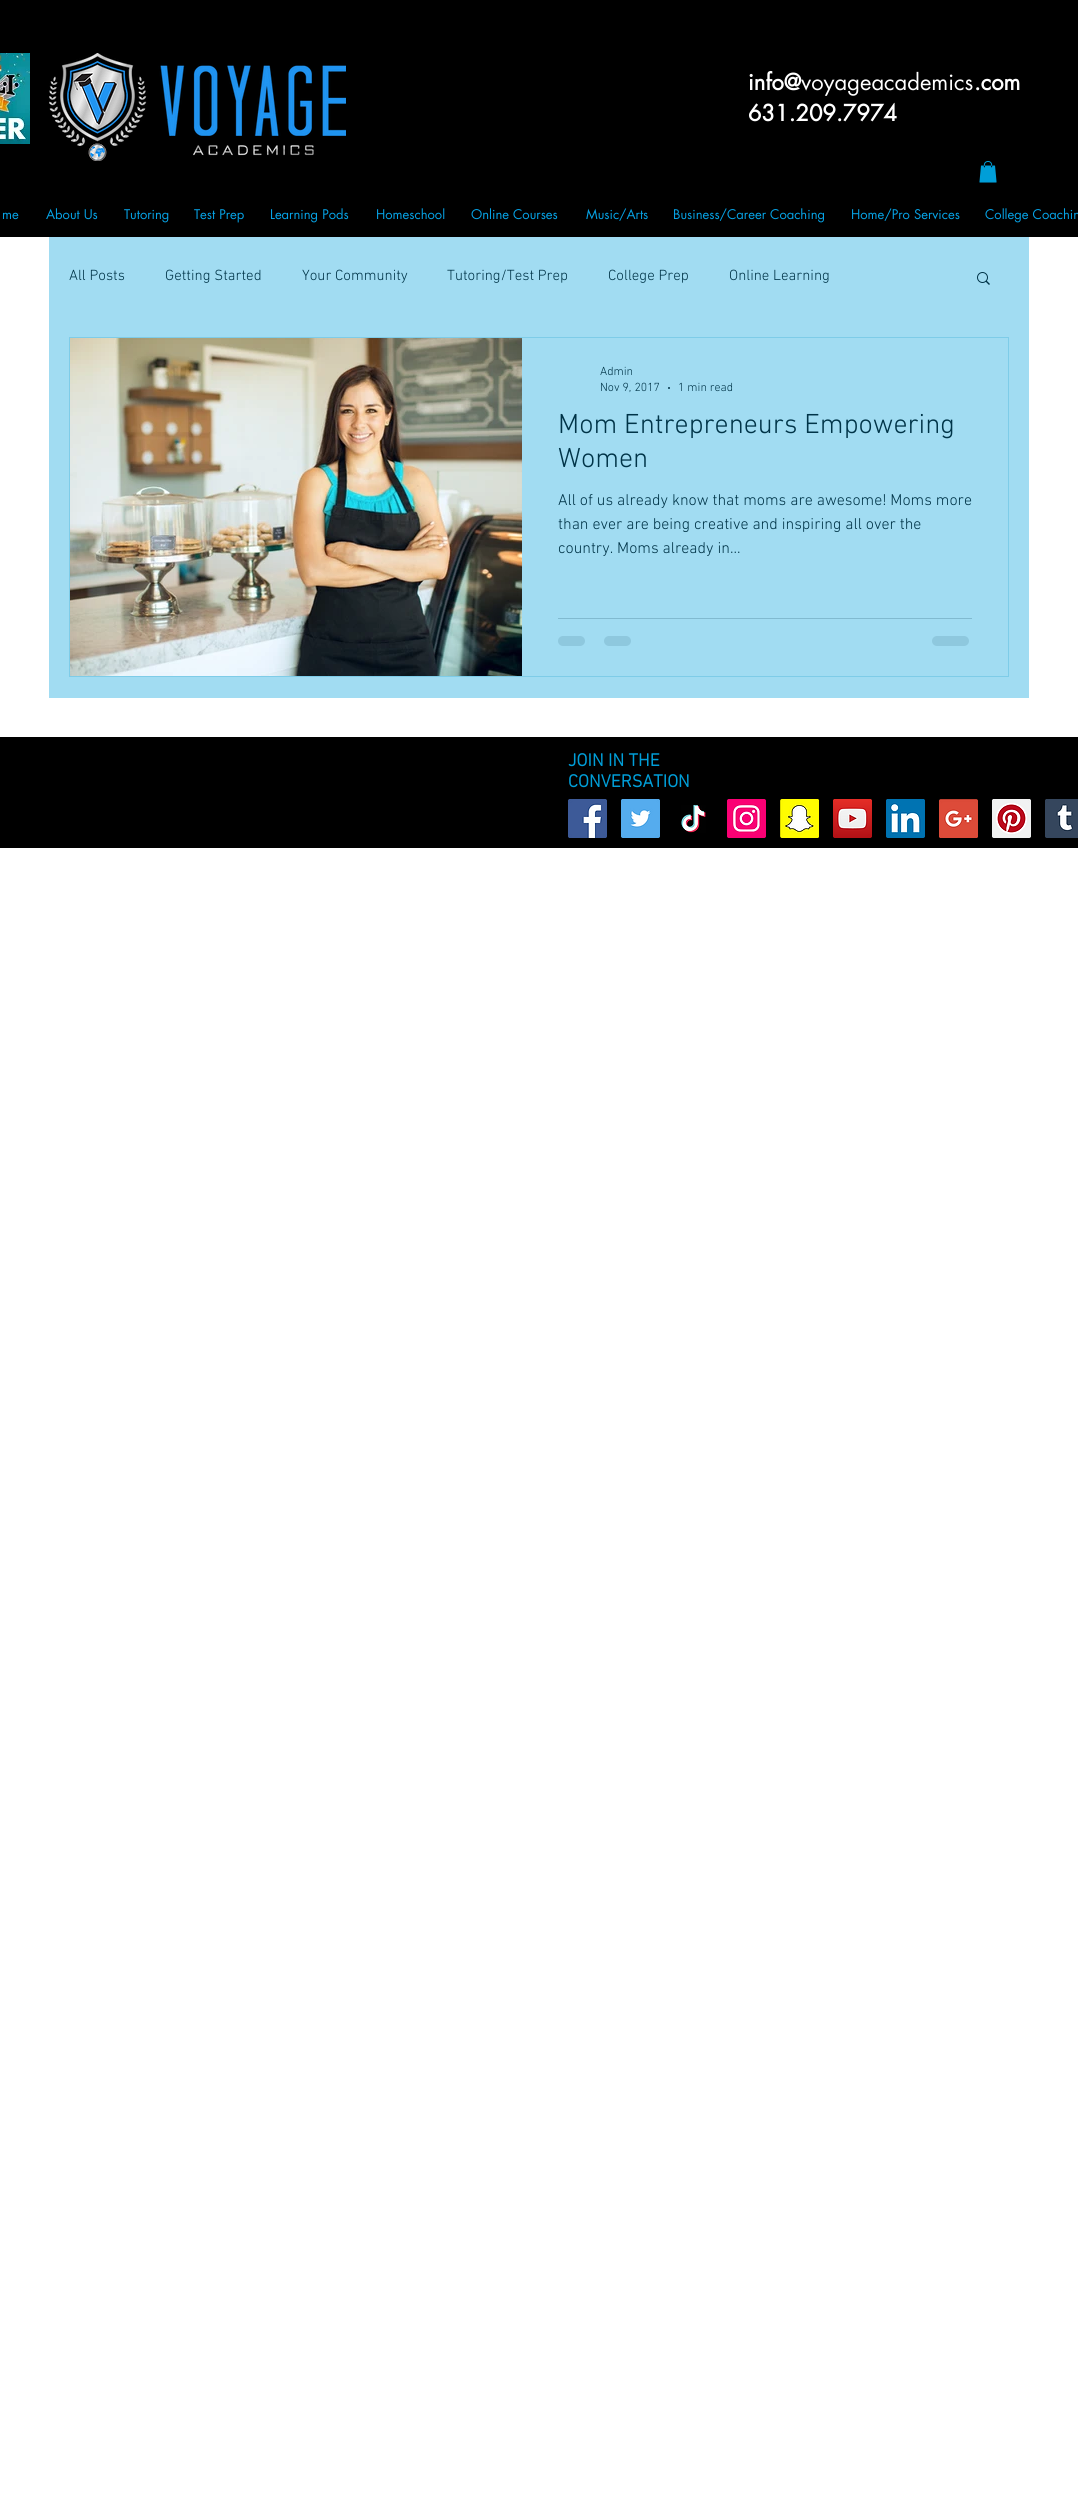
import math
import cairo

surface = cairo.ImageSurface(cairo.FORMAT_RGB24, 1078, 2496)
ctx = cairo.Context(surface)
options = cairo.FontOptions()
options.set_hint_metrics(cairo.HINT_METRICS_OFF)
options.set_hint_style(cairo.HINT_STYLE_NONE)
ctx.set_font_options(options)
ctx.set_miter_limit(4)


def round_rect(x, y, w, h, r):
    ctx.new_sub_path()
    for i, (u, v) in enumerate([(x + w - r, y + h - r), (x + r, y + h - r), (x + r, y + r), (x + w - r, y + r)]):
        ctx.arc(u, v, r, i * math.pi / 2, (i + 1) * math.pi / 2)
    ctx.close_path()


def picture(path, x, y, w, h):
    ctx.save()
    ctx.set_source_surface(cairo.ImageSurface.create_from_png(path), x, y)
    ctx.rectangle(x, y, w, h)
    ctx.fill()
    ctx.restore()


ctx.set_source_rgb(1, 1, 1)
ctx.paint()
ctx.set_source_rgb(0, 0, 0)
ctx.rectangle(0, 0, 1078, 237)
ctx.fill()
picture("img1.png", 0, 53, 30, 91)
picture("img2.png", 49, 53, 297, 108)
ctx.select_font_face("futura", cairo.FONT_SLANT_NORMAL, cairo.FONT_WEIGHT_BOLD)
ctx.set_font_size(22)
ctx.set_source_rgb(1, 1, 1)
ctx.move_to(748, 90)
ctx.show_text("info@")
ctx.select_font_face("futura")
ctx.move_to(801, 90)
ctx.show_text("voyageacademics")
ctx.select_font_face("futura", cairo.FONT_SLANT_NORMAL, cairo.FONT_WEIGHT_BOLD)
ctx.move_to(974, 90)
ctx.show_text(".com")
ctx.move_to(748, 121)
ctx.show_text("631.209.7974")
picture("img3.png", 979, 161, 18, 22)
ctx.select_font_face("futura")
ctx.set_font_size(13)
ctx.set_source_rgb(0.027, 0.639, 0.902)
ctx.move_to(2, 219)
ctx.show_text("me")
ctx.move_to(46, 219)
ctx.show_text("About Us")
ctx.move_to(124, 219)
ctx.show_text("Tutoring")
ctx.move_to(194, 219)
ctx.show_text("Test Prep")
ctx.move_to(270, 219)
ctx.show_text("Learning Pods")
ctx.move_to(376, 219)
ctx.show_text("Homeschool")
ctx.move_to(471, 219)
ctx.show_text("Online Courses")
ctx.move_to(586, 219)
ctx.show_text("Music/Arts")
ctx.move_to(673, 219)
ctx.show_text("Business/Career Coaching")
ctx.move_to(851, 219)
ctx.show_text("Home/Pro Services")
ctx.move_to(985, 219)
ctx.show_text("College Coachin")
ctx.set_source_rgb(0.631, 0.863, 0.949)
ctx.rectangle(49, 237, 980, 461)
ctx.fill()
ctx.select_font_face("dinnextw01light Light")
ctx.set_font_size(15)
ctx.set_source_rgb(0, 0.204, 0.282)
ctx.move_to(69, 280)
ctx.show_text("All Posts")
ctx.move_to(165, 280)
ctx.show_text("Getting Started")
ctx.move_to(302, 280)
ctx.show_text("Your Community")
ctx.move_to(447, 280)
ctx.show_text("Tutoring/Test Prep")
ctx.move_to(608, 280)
ctx.show_text("College Prep")
ctx.move_to(729, 280)
ctx.show_text("Online Learning")
picture("img4.png", 977, 272, 13, 13)
ctx.rectangle(69.5, 337.5, 939, 339)
ctx.set_source_rgb(0.494, 0.8, 0.91)
ctx.set_line_width(1)
ctx.stroke()
picture("img5.png", 70, 338, 452, 338)
ctx.set_font_size(12)
ctx.set_source_rgb(0, 0.204, 0.282)
ctx.move_to(600, 375)
ctx.show_text("Admin")
ctx.move_to(600, 391)
ctx.show_text("Nov 9, 2017")
ctx.new_path()
ctx.arc(669, 388, 1, 0, 2 * math.pi)
ctx.fill()
ctx.move_to(678, 391)
ctx.show_text("1 min read")
ctx.set_font_size(28)
ctx.move_to(558, 433)
ctx.show_text("Mom Entrepreneurs Empowering")
ctx.move_to(558, 467)
ctx.show_text("Women")
ctx.set_font_size(16)
ctx.move_to(558, 505)
ctx.show_text("All of us already know that moms are awesome! Moms more")
ctx.move_to(558, 529)
ctx.show_text("than ever are being creative and inspiring all over the")
ctx.move_to(558, 553)
ctx.show_text("country. Moms already in...")
ctx.set_source_rgb(0.506, 0.729, 0.816)
ctx.rectangle(558, 618, 414, 1)
ctx.fill()
ctx.set_source_rgb(0.557, 0.784, 0.871)
round_rect(558, 636, 27, 10, 5)
ctx.fill()
round_rect(604, 636, 27, 10, 5)
ctx.fill()
round_rect(932, 636, 37, 10, 5)
ctx.fill()
ctx.set_source_rgb(0, 0, 0)
ctx.rectangle(0, 737, 1078, 111)
ctx.fill()
ctx.select_font_face("dinnextw01light", cairo.FONT_SLANT_NORMAL, cairo.FONT_WEIGHT_BOLD)
ctx.set_font_size(18)
ctx.set_source_rgb(0, 0.62, 0.847)
ctx.move_to(568, 766)
ctx.show_text("JOIN IN THE")
ctx.move_to(568, 787)
ctx.show_text("CONVERSATION")
picture("img6.png", 568, 799, 39, 39)
picture("img7.png", 621, 799, 39, 39)
picture("img8.png", 681, 805, 25, 28)
picture("img9.png", 727, 799, 39, 39)
picture("img10.png", 780, 799, 39, 39)
picture("img11.png", 833, 799, 39, 39)
picture("img12.png", 886, 799, 39, 39)
picture("img13.png", 939, 799, 39, 39)
picture("img14.png", 992, 799, 39, 39)
picture("img15.png", 1045, 799, 33, 39)
surface.write_to_png("page.png")
